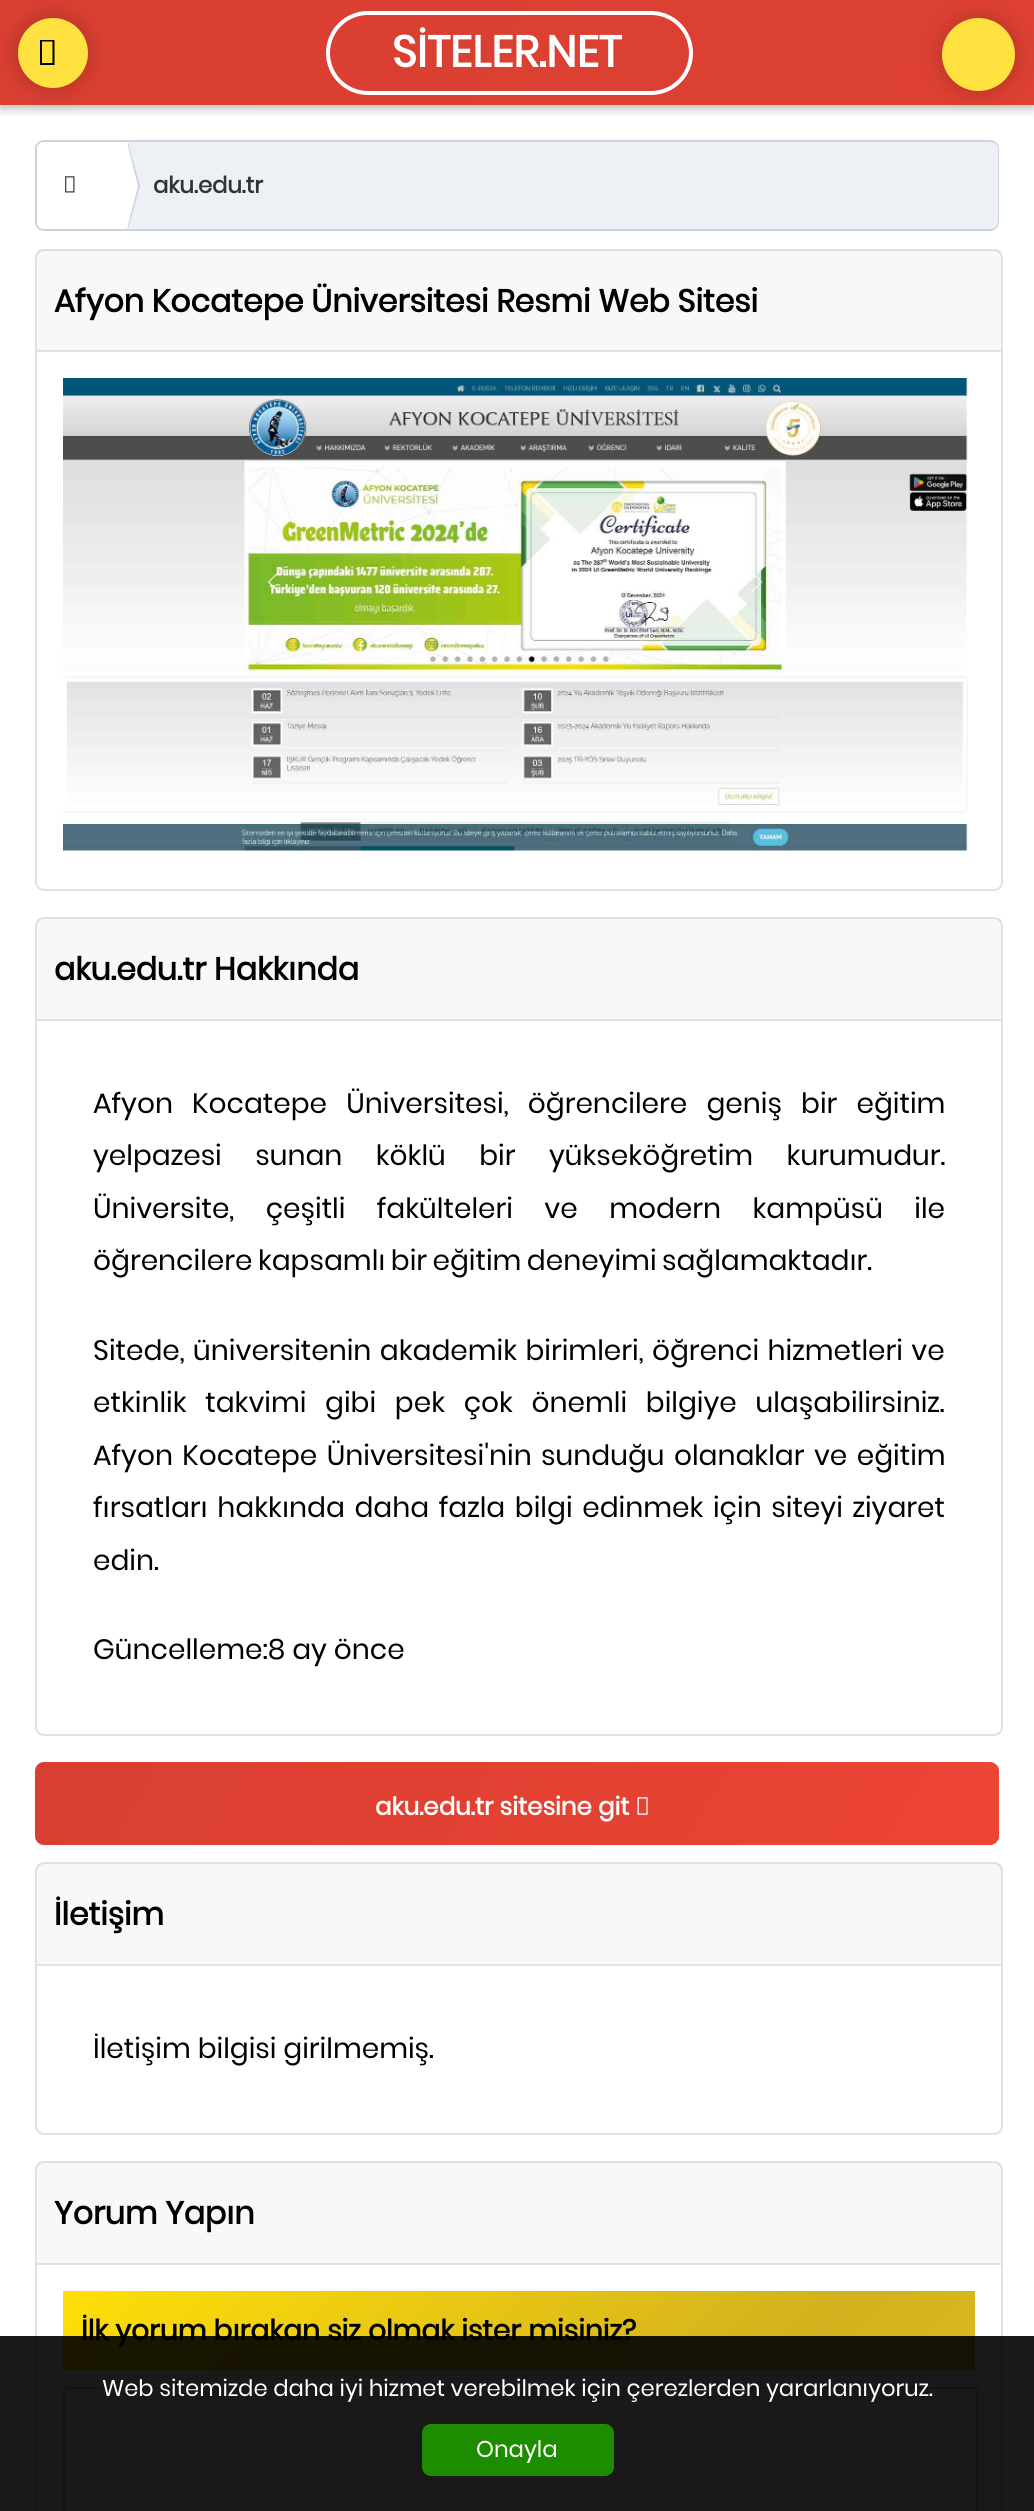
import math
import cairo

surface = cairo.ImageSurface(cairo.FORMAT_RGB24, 1034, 2511)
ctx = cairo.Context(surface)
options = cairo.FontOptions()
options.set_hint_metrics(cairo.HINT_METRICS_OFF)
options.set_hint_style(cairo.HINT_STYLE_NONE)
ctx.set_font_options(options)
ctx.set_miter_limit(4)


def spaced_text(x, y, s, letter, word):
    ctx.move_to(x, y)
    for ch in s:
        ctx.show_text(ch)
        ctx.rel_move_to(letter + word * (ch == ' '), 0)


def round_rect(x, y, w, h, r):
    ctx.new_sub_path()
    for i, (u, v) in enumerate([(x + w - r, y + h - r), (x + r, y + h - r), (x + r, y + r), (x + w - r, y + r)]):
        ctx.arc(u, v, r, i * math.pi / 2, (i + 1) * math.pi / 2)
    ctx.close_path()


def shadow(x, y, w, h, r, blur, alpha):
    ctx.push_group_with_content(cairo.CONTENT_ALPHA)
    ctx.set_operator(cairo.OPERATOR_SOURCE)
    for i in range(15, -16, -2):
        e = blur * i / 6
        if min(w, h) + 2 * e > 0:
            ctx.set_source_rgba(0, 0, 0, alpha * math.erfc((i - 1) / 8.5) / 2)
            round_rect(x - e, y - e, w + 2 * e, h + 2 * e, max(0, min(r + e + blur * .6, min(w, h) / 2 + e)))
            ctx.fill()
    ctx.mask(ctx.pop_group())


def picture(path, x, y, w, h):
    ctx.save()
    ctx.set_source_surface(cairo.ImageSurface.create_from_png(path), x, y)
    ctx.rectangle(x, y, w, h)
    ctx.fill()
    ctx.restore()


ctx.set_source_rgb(1, 1, 1)
ctx.paint()
ctx.set_source_rgb(0, 0, 0)
shadow(0, 4, 1034, 105, 0, 4.5, 0.26)
gradient = cairo.LinearGradient(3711, 1158, 426, -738)
gradient.add_color_stop_rgba(0, 0.929, 0.267, 0.208, 1)
gradient.add_color_stop_rgba(1, 0.847, 0.247, 0.192, 1)
ctx.set_source(gradient)
ctx.rectangle(0, 0, 1034, 105)
ctx.fill()
ctx.set_source_rgb(0, 0, 0)
shadow(18, 18, 70, 70, 35, 10.5, 0.2)
ctx.set_source_rgb(1, 0.886, 0.251)
ctx.arc(53, 53, 35, 0, 2 * math.pi)
ctx.fill()
ctx.set_source_rgb(0, 0, 0)
ctx.new_path()
ctx.move_to(40, 65)
ctx.line_to(40, 40)
ctx.line_to(54.5, 40)
ctx.line_to(54.5, 65)
ctx.close_path()
ctx.move_to(42, 63)
ctx.line_to(52.5, 63)
ctx.line_to(52.5, 41.5)
ctx.line_to(42, 41.5)
ctx.close_path()
ctx.fill()
round_rect(328, 13, 363, 80, 40)
ctx.set_source_rgb(1, 1, 1)
ctx.set_line_width(4)
ctx.stroke()
ctx.select_font_face("Poppins", cairo.FONT_SLANT_NORMAL, cairo.FONT_WEIGHT_BOLD)
ctx.set_font_size(43.75)
ctx.move_to(392, 67)
ctx.show_text("SİTELER.NET")
ctx.set_source_rgb(0, 0, 0)
shadow(942, 18, 73, 73, 36.5, 10.5, 0.2)
ctx.set_source_rgb(1, 0.886, 0.251)
ctx.arc(978.5, 54.5, 36.5, 0, 2 * math.pi)
ctx.fill()
round_rect(36, 141, 962, 89, 8)
ctx.set_source_rgb(0.796, 0.824, 0.851)
ctx.set_line_width(2)
ctx.stroke()
ctx.set_source_rgb(1, 1, 1)
ctx.new_path()
ctx.move_to(44, 142)
ctx.line_to(126, 142)
ctx.line_to(126, 229)
ctx.line_to(44, 229)
ctx.curve_to(40, 229, 37, 226, 37, 222)
ctx.line_to(37, 149)
ctx.curve_to(37, 145, 40, 142, 44, 142)
ctx.close_path()
ctx.fill()
ctx.set_source_rgb(0.929, 0.945, 0.961)
ctx.new_path()
ctx.move_to(126, 142)
ctx.line_to(991, 142)
ctx.curve_to(995, 142, 998, 145, 998, 149)
ctx.line_to(998, 222)
ctx.curve_to(998, 226, 995, 229, 991, 229)
ctx.line_to(126, 229)
ctx.close_path()
ctx.fill()
ctx.set_source_rgb(0.796, 0.824, 0.851)
ctx.new_path()
ctx.move_to(128, 142)
ctx.line_to(140, 186)
ctx.line_to(128, 229)
ctx.line_to(128, 226)
ctx.close_path()
ctx.fill()
ctx.set_source_rgb(1, 1, 1)
ctx.new_path()
ctx.move_to(126, 142)
ctx.line_to(127, 142)
ctx.line_to(138, 186)
ctx.line_to(127, 229)
ctx.line_to(126, 223)
ctx.close_path()
ctx.fill()
picture("img1.png", 65, 176, 10, 17)
ctx.set_font_size(22.75)
ctx.set_source_rgb(0.2, 0.2, 0.2)
ctx.move_to(153, 193)
ctx.show_text("aku.edu.tr")
round_rect(36, 250, 966, 640, 8)
ctx.set_source_rgb(0.882, 0.882, 0.882)
ctx.stroke()
ctx.set_source_rgba(0, 0, 0, 0.03)
ctx.rectangle(37, 250, 964, 100)
ctx.fill()
ctx.set_source_rgb(0.882, 0.882, 0.882)
ctx.rectangle(37, 350, 964, 2)
ctx.fill()
ctx.set_font_size(31.5)
ctx.set_source_rgb(0, 0, 0)
ctx.move_to(54, 312)
ctx.show_text("Afyon Kocatepe Üniversitesi Resmi Web Sitesi")
picture("img2.png", 63, 378, 905, 473)
round_rect(36, 918, 966, 817, 8)
ctx.set_source_rgb(0.882, 0.882, 0.882)
ctx.stroke()
ctx.set_source_rgba(0, 0, 0, 0.03)
ctx.rectangle(37, 919, 964, 100)
ctx.fill()
ctx.set_source_rgb(0.882, 0.882, 0.882)
ctx.rectangle(37, 1019, 964, 2)
ctx.fill()
ctx.set_source_rgb(0, 0, 0)
ctx.move_to(54, 980)
ctx.show_text("aku.edu.tr Hakkında")
ctx.select_font_face("Poppins")
ctx.set_font_size(28)
spaced_text(93, 1113, "Afyon Kocatepe Üniversitesi, öğrencilere geniş bir eğitim", 0, 12.25)
spaced_text(93, 1165, "yelpazesi sunan köklü bir yükseköğretim kurumudur.", 0, 26.5)
spaced_text(93, 1218, "Üniversite, çeşitli fakülteleri ve modern kampüsü ile", 0, 24.5)
spaced_text(93, 1270, "öğrencilere kapsamlı bir eğitim deneyimi sağlamaktadır.", 0, -1.5)
spaced_text(93, 1360, "Sitede, üniversitenin akademik birimleri, öğrenci hizmetleri ve", 0, 1.5)
spaced_text(93, 1412, "etkinlik takvimi gibi pek çok önemli bilgiye ulaşabilirsiniz.", 0, 11.75)
spaced_text(93, 1465, "Afyon Kocatepe Üniversitesi'nin sunduğu olanaklar ve eğitim", 0, 2.5)
spaced_text(93, 1517, "fırsatları hakkında daha fazla bilgi edinmek için siteyi ziyaret", 0, 2.75)
ctx.move_to(93, 1570)
ctx.show_text("edin.")
ctx.move_to(93, 1659)
ctx.show_text("Güncelleme:8 ay önce")
gradient = cairo.LinearGradient(897, 2022, 138, 1584)
gradient.add_color_stop_rgba(0, 0.929, 0.267, 0.208, 1)
gradient.add_color_stop_rgba(1, 0.847, 0.247, 0.192, 1)
ctx.set_source(gradient)
round_rect(35, 1762, 964, 83, 9)
ctx.fill()
ctx.select_font_face("Poppins", cairo.FONT_SLANT_NORMAL, cairo.FONT_WEIGHT_BOLD)
ctx.set_font_size(24.5)
ctx.set_source_rgb(1, 1, 1)
ctx.move_to(375, 1815)
ctx.show_text("aku.edu.tr sitesine git")
picture("img3.png", 637, 1797, 11, 18)
round_rect(36, 1863, 966, 271, 8)
ctx.set_source_rgb(0.882, 0.882, 0.882)
ctx.stroke()
ctx.set_source_rgba(0, 0, 0, 0.03)
ctx.rectangle(37, 1864, 964, 100)
ctx.fill()
ctx.set_source_rgb(0.882, 0.882, 0.882)
ctx.rectangle(37, 1964, 964, 2)
ctx.fill()
ctx.set_font_size(31.5)
ctx.set_source_rgb(0, 0, 0)
ctx.move_to(54, 1925)
ctx.show_text("İletişim")
ctx.select_font_face("Poppins")
ctx.set_font_size(28)
ctx.move_to(93, 2058)
ctx.show_text("İletişim bilgisi girilmemiş.")
round_rect(36, 2162, 966, 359, 8)
ctx.set_source_rgb(0.882, 0.882, 0.882)
ctx.stroke()
ctx.set_source_rgba(0, 0, 0, 0.03)
ctx.rectangle(37, 2163, 964, 100)
ctx.fill()
ctx.set_source_rgb(0.882, 0.882, 0.882)
ctx.rectangle(37, 2263, 964, 2)
ctx.fill()
ctx.select_font_face("Poppins", cairo.FONT_SLANT_NORMAL, cairo.FONT_WEIGHT_BOLD)
ctx.set_font_size(31.5)
ctx.set_source_rgb(0, 0, 0)
ctx.move_to(54, 2224)
ctx.show_text("Yorum Yapın")
gradient = cairo.LinearGradient(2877, 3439, 896, 1458)
gradient.add_color_stop_rgba(0, 0.937, 0.898, 0.137, 1)
gradient.add_color_stop_rgba(0.2, 0.859, 0.71, 0.106, 1)
gradient.add_color_stop_rgba(0.4, 0.906, 0.792, 0.071, 1)
gradient.add_color_stop_rgba(0.6, 0.937, 0.816, 0.129, 1)
gradient.add_color_stop_rgba(0.8, 0.824, 0.694, 0.118, 1)
gradient.add_color_stop_rgba(1, 1, 0.871, 0.035, 1)
ctx.set_source(gradient)
ctx.rectangle(63, 2291, 912, 79)
ctx.fill()
ctx.set_font_size(28)
ctx.set_source_rgb(0, 0, 0)
spaced_text(81, 2340, "İlk yorum bırakan siz olmak ister misiniz?", 0, 0.25)
round_rect(64, 2388, 913, 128, 3)
ctx.set_source_rgb(0.745, 0.745, 0.745)
ctx.stroke()
ctx.set_source_rgba(0, 0, 0, 0.9)
ctx.rectangle(0, 2336, 1034, 175)
ctx.fill()
ctx.select_font_face("Poppins")
ctx.set_font_size(22.75)
ctx.set_source_rgb(1, 1, 1)
ctx.move_to(102, 2396)
ctx.show_text("Web sitemizde daha iyi hizmet verebilmek için çerezlerden yararlanıyoruz.")
ctx.set_source_rgb(0.118, 0.549, 0)
round_rect(422, 2424, 192, 52, 9)
ctx.fill()
ctx.set_source_rgb(1, 1, 1)
ctx.move_to(476, 2457)
ctx.show_text("Onayla")
surface.write_to_png("page.png")
